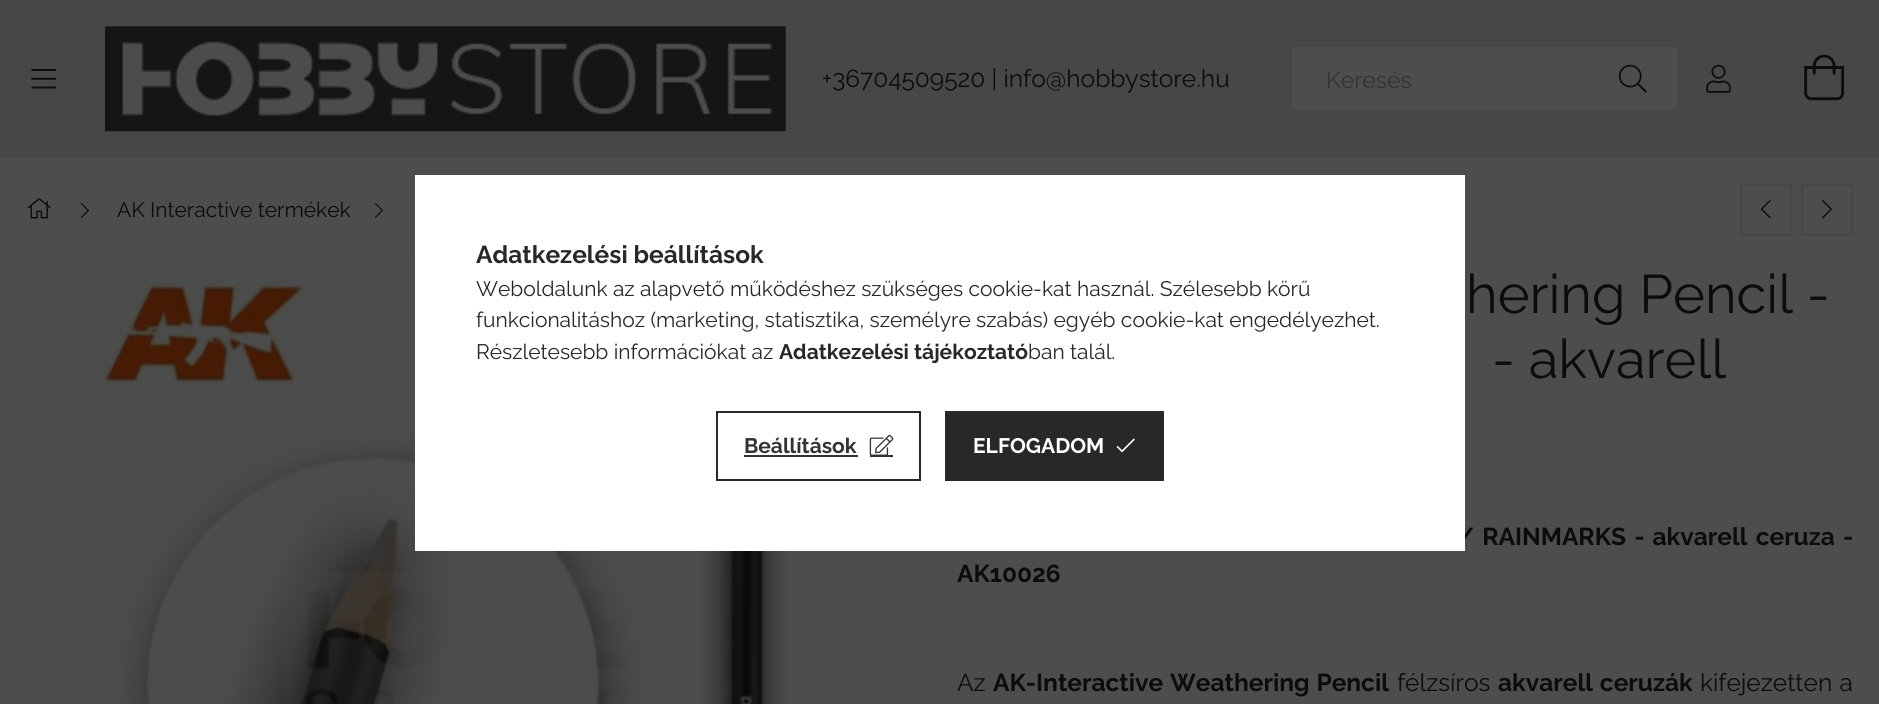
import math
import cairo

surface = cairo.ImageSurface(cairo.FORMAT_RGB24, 1879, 704)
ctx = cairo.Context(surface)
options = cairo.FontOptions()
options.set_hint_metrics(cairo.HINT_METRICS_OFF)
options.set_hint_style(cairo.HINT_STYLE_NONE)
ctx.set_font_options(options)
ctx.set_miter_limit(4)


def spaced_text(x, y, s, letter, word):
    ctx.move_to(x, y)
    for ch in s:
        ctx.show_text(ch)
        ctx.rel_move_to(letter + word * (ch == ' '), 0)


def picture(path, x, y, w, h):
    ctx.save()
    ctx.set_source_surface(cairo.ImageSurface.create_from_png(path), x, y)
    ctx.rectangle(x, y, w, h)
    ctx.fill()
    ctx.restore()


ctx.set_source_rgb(0.302, 0.302, 0.302)
ctx.paint()
ctx.set_source_rgb(0.278, 0.278, 0.278)
ctx.rectangle(0, 0, 1879, 158)
ctx.fill()
picture("img1.png", 31, 69, 25, 20)
picture("img2.png", 105, 26, 681, 106)
ctx.select_font_face("Raleway")
ctx.set_font_size(24.5)
ctx.set_source_rgb(0.047, 0.047, 0.047)
ctx.move_to(822, 87)
ctx.show_text("+36704509520 | info@hobbystore.hu")
ctx.set_source_rgb(0.302, 0.302, 0.302)
ctx.rectangle(1292, 47, 385, 63)
ctx.fill()
ctx.set_font_size(23)
ctx.set_source_rgb(0.2, 0.2, 0.2)
ctx.move_to(1326, 88)
ctx.show_text("Keresés")
picture("img3.png", 1618, 64, 29, 29)
picture("img4.png", 1706, 64, 25, 29)
picture("img5.png", 1804, 54, 41, 47)
picture("img6.png", 27, 198, 24, 21)
picture("img7.png", 80, 202, 9, 16)
ctx.set_font_size(21)
ctx.set_source_rgb(0.047, 0.047, 0.047)
ctx.move_to(117, 217)
ctx.show_text("AK Interactive termékek")
picture("img7.png", 374, 202, 9, 16)
ctx.rectangle(1741, 185, 50, 50)
ctx.set_source_rgb(0.275, 0.275, 0.275)
ctx.stroke()
picture("img8.png", 1760, 200, 11, 19)
ctx.rectangle(1802, 185, 50, 50)
ctx.stroke()
picture("img9.png", 1822, 200, 10, 19)
picture("img10.png", 102, 262, 686, 442)
ctx.set_font_size(54.25)
ctx.set_source_rgb(0.047, 0.047, 0.047)
ctx.move_to(1466, 313)
ctx.show_text("hering Pencil -")
ctx.move_to(1492, 378)
ctx.show_text("- akvarell")
ctx.select_font_face("Raleway", cairo.FONT_SLANT_NORMAL, cairo.FONT_WEIGHT_BOLD)
ctx.set_font_size(24.5)
spaced_text(1457, 545, "/ RAINMARKS - akvarell ceruza -", 0, 2.25)
ctx.move_to(957, 582)
ctx.show_text("AK10026")
ctx.select_font_face("Raleway")
ctx.move_to(957, 691)
ctx.show_text("Az")
ctx.select_font_face("Raleway", cairo.FONT_SLANT_NORMAL, cairo.FONT_WEIGHT_BOLD)
spaced_text(993, 691, "AK-Interactive Weathering Pencil", 0, 1)
ctx.select_font_face("Raleway")
ctx.move_to(1397, 691)
ctx.show_text("félzsíros")
ctx.select_font_face("Raleway", cairo.FONT_SLANT_NORMAL, cairo.FONT_WEIGHT_BOLD)
spaced_text(1498, 691, "akvarell ceruzák", 0, 1)
ctx.select_font_face("Raleway")
spaced_text(1700, 691, "kifejezetten a", 0, 1)
ctx.set_source_rgb(1, 1, 1)
ctx.rectangle(415, 175, 1050, 376)
ctx.fill()
ctx.select_font_face("Raleway", cairo.FONT_SLANT_NORMAL, cairo.FONT_WEIGHT_BOLD)
ctx.set_source_rgb(0.157, 0.157, 0.157)
ctx.move_to(476, 263)
ctx.show_text("Adatkezelési beállítások")
ctx.select_font_face("Raleway")
ctx.set_font_size(21)
ctx.move_to(476, 296)
ctx.show_text("Weboldalunk az alapvető működéshez szükséges cookie-kat használ. Szélesebb körű")
ctx.move_to(476, 327)
ctx.show_text("funkcionalitáshoz (marketing, statisztika, személyre szabás) egyéb cookie-kat engedélyezhet.")
ctx.move_to(476, 359)
ctx.show_text("Részletesebb információkat az")
ctx.select_font_face("Raleway", cairo.FONT_SLANT_NORMAL, cairo.FONT_WEIGHT_BOLD)
ctx.move_to(779, 359)
ctx.show_text("Adatkezelési tájékoztató")
ctx.select_font_face("Raleway")
ctx.move_to(1028, 359)
ctx.show_text("ban talál.")
ctx.rectangle(717, 412, 203, 68)
ctx.stroke()
ctx.select_font_face("Raleway", cairo.FONT_SLANT_NORMAL, cairo.FONT_WEIGHT_BOLD)
ctx.set_source_rgb(0.2, 0.2, 0.2)
ctx.move_to(744, 453)
ctx.show_text("Beállítások")
ctx.rectangle(744, 455, 114, 2)
ctx.fill()
picture("img11.png", 869, 434, 25, 21)
ctx.rectangle(870, 455, 23, 2)
ctx.fill()
ctx.set_source_rgb(0.157, 0.157, 0.157)
ctx.rectangle(945, 411, 219, 70)
ctx.fill()
ctx.set_source_rgb(1, 1, 1)
ctx.move_to(973, 453)
ctx.show_text("ELFOGADOM")
picture("img12.png", 1116, 438, 19, 15)
surface.write_to_png("page.png")
